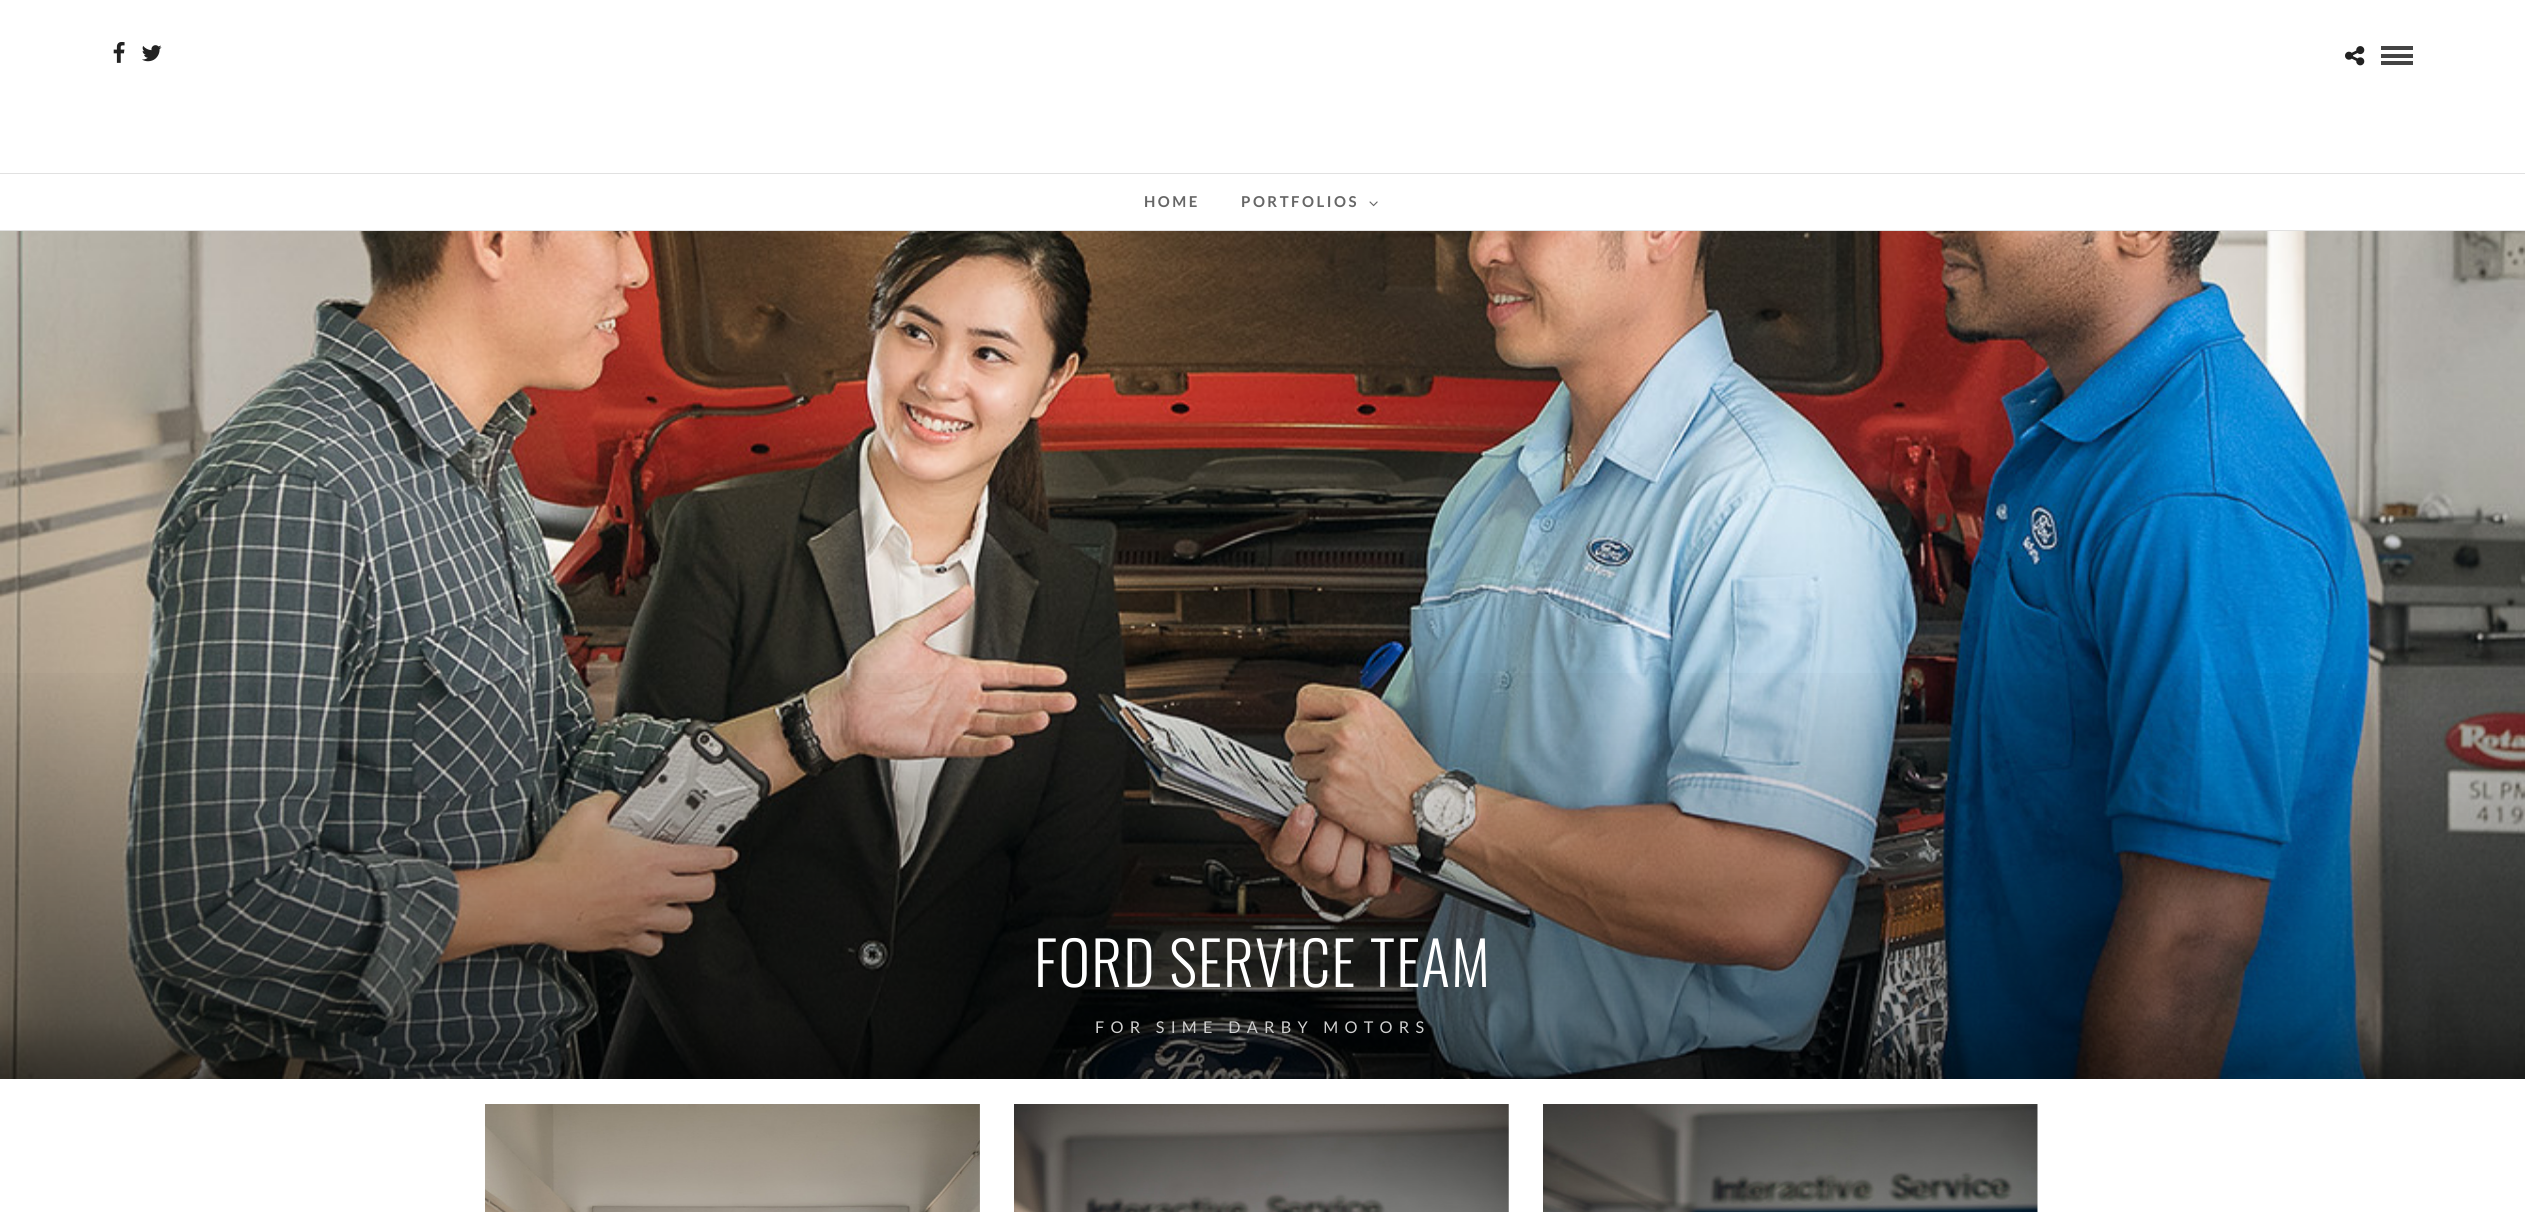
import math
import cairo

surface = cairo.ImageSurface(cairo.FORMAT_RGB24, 2525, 1212)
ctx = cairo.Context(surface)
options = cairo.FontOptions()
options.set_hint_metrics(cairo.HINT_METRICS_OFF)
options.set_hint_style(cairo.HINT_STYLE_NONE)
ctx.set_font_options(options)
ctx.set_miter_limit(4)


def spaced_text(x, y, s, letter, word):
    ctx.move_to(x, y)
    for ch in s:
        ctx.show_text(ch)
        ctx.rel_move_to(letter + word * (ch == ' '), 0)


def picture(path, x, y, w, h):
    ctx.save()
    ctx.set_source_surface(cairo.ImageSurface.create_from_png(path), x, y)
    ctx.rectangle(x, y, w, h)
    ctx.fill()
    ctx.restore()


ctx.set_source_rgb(1, 1, 1)
ctx.paint()
ctx.set_source_rgb(0.882, 0.882, 0.882)
ctx.rectangle(0, 230, 2525, 1)
ctx.fill()
ctx.rectangle(0, 173, 2525, 1)
ctx.fill()
picture("img1.png", 113, 42, 12, 21)
picture("img2.png", 142, 45, 20, 17)
picture("img3.png", 2345, 46, 20, 20)
ctx.set_source_rgb(0.267, 0.267, 0.267)
ctx.rectangle(2381, 46, 32, 4)
ctx.fill()
ctx.rectangle(2381, 54, 32, 4)
ctx.fill()
ctx.rectangle(2381, 61, 32, 4)
ctx.fill()
ctx.select_font_face("Lato", cairo.FONT_SLANT_NORMAL, cairo.FONT_WEIGHT_BOLD)
ctx.set_font_size(15)
ctx.set_source_rgb(0.4, 0.4, 0.4)
spaced_text(1144, 207, "HOME", 2.5, 0)
spaced_text(1241, 207, "PORTFOLIOS", 2.5, 0)
picture("img4.png", 1369, 201, 9, 6)
picture("img5.png", 0, 231, 2525, 848)
gradient = cairo.LinearGradient(1263, 230, 1263, 1079)
gradient.add_color_stop_rgba(0, 0, 0, 0, 0)
gradient.add_color_stop_rgba(0.5, 0, 0, 0, 0)
gradient.add_color_stop_rgba(0.6, 0, 0, 0, 0.1)
gradient.add_color_stop_rgba(0.93, 0, 0, 0, 0.4)
gradient.add_color_stop_rgba(1, 0, 0, 0, 0.59)
ctx.set_source(gradient)
ctx.rectangle(0, 673, 2525, 406)
ctx.fill()
ctx.select_font_face("Oswald Light")
ctx.set_font_size(60)
ctx.set_source_rgb(1, 1, 1)
spaced_text(1034, 987, "FORD SERVICE TEAM", 1.25, 0)
ctx.select_font_face("Lato")
ctx.set_font_size(16.25)
ctx.set_source_rgb(0.816, 0.816, 0.816)
spaced_text(1095, 1033, "FOR SIME DARBY MOTORS", 6.25, 0)
picture("img6.png", 485, 1104, 495, 108)
picture("img7.png", 1014, 1104, 495, 108)
picture("img8.png", 1543, 1104, 495, 108)
surface.write_to_png("page.png")
